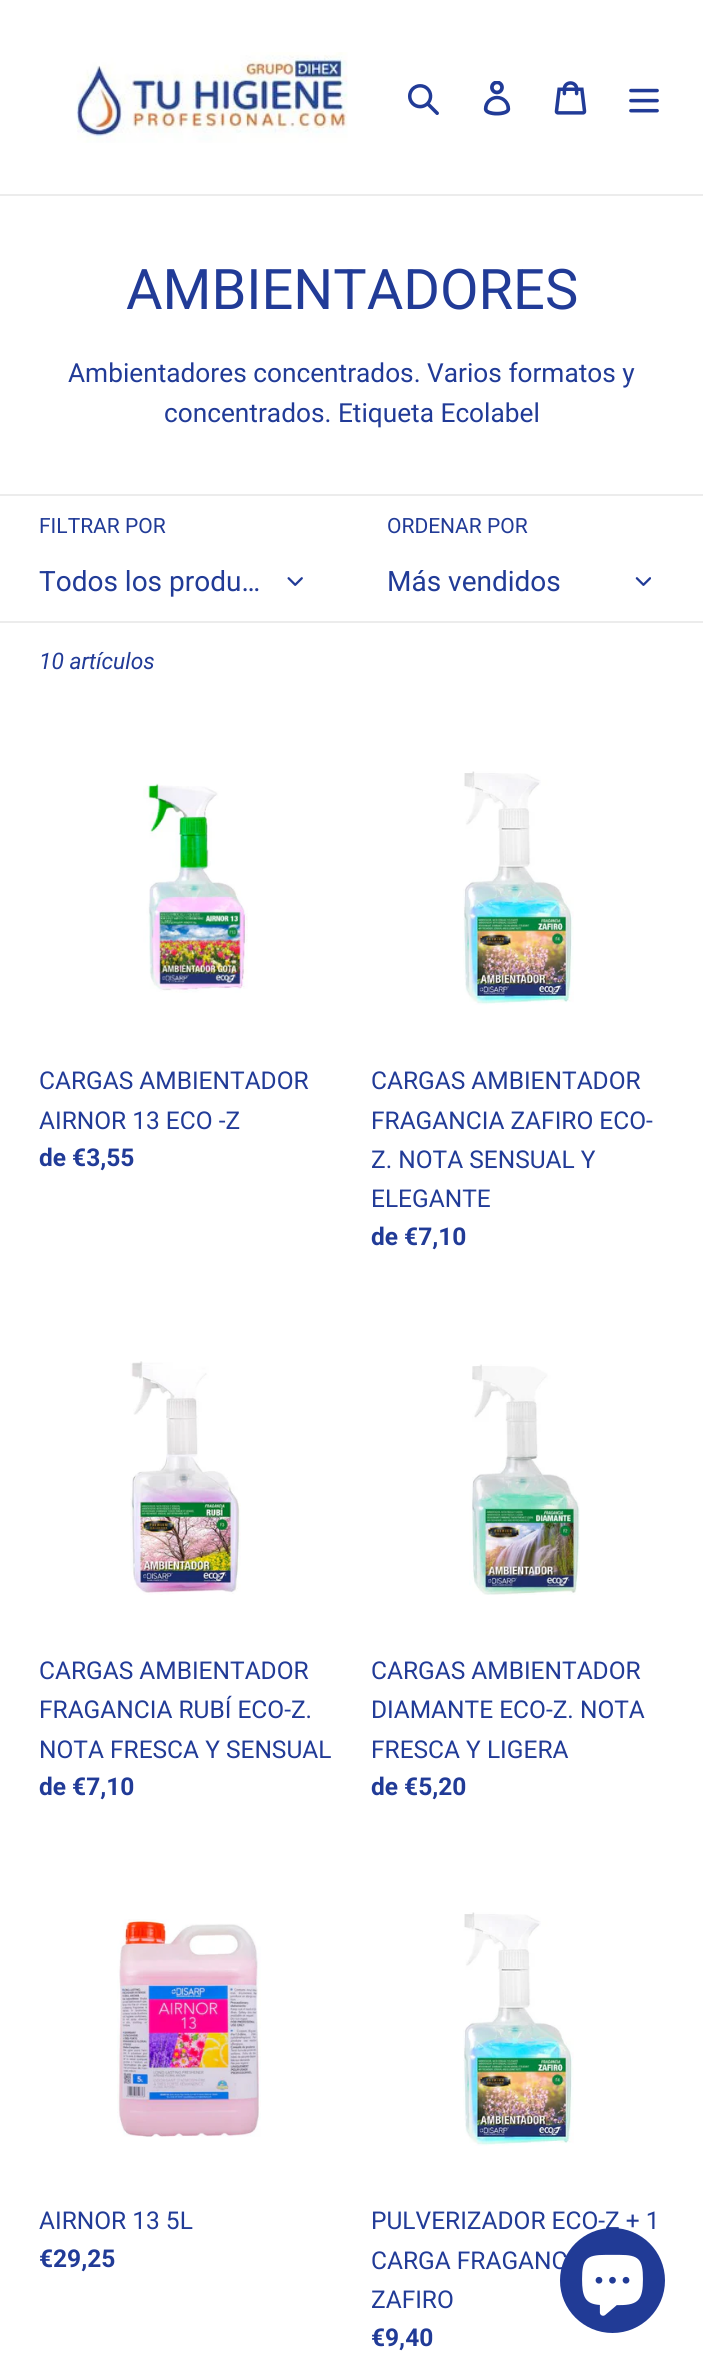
import math
import cairo

surface = cairo.ImageSurface(cairo.FORMAT_RGB24, 703, 2368)
ctx = cairo.Context(surface)
options = cairo.FontOptions()
options.set_hint_metrics(cairo.HINT_METRICS_OFF)
options.set_hint_style(cairo.HINT_STYLE_NONE)
ctx.set_font_options(options)
ctx.set_miter_limit(4)


def picture(path, x, y, w, h):
    ctx.save()
    ctx.set_source_surface(cairo.ImageSurface.create_from_png(path), x, y)
    ctx.rectangle(x, y, w, h)
    ctx.fill()
    ctx.restore()


ctx.set_source_rgb(1, 1, 1)
ctx.paint()
ctx.set_source_rgb(0.922, 0.922, 0.922)
ctx.rectangle(0, 194, 703, 2)
ctx.fill()
picture("img1.png", 76, 52, 272, 91)
picture("img2.png", 408, 84, 31, 31)
picture("img3.png", 483, 81, 28, 35)
picture("img4.png", 554, 81, 33, 34)
picture("img5.png", 629, 88, 30, 25)
ctx.select_font_face("Roboto")
ctx.set_font_size(56)
ctx.set_source_rgb(0.129, 0.231, 0.592)
ctx.move_to(126, 309)
ctx.show_text("AMBIENTADORES")
ctx.set_font_size(26.25)
ctx.move_to(68, 382)
ctx.show_text("Ambientadores concentrados. Varios formatos y")
ctx.move_to(164, 422)
ctx.show_text("concentrados. Etiqueta Ecolabel")
ctx.set_source_rgb(0.922, 0.922, 0.922)
ctx.rectangle(0, 494, 703, 2)
ctx.fill()
ctx.set_font_size(21)
ctx.set_source_rgb(0.129, 0.231, 0.592)
ctx.move_to(39, 533)
ctx.show_text("FILTRAR POR")
ctx.set_font_size(28)
ctx.move_to(39, 591)
ctx.show_text("Todos los produ…")
picture("img6.png", 287, 577, 16, 9)
ctx.set_font_size(21)
ctx.move_to(387, 533)
ctx.show_text("ORDENAR POR")
ctx.set_font_size(28)
ctx.move_to(387, 591)
ctx.show_text("Más vendidos")
picture("img7.png", 635, 577, 16, 9)
ctx.set_source_rgb(0.922, 0.922, 0.922)
ctx.rectangle(0, 621, 703, 2)
ctx.fill()
ctx.select_font_face("Roboto", cairo.FONT_SLANT_ITALIC)
ctx.set_font_size(22.75)
ctx.set_source_rgb(0.129, 0.231, 0.592)
ctx.move_to(39, 669)
ctx.show_text("10 artículos")
picture("img8.png", 143, 783, 105, 210)
ctx.select_font_face("Roboto")
ctx.set_font_size(24.5)
ctx.move_to(39, 1089)
ctx.show_text("CARGAS AMBIENTADOR")
ctx.move_to(39, 1129)
ctx.show_text("AIRNOR 13 ECO -Z")
ctx.select_font_face("Roboto", cairo.FONT_SLANT_NORMAL, cairo.FONT_WEIGHT_BOLD)
ctx.move_to(39, 1166)
ctx.show_text("de €3,55")
picture("img9.png", 463, 771, 111, 234)
ctx.select_font_face("Roboto")
ctx.move_to(371, 1089)
ctx.show_text("CARGAS AMBIENTADOR")
ctx.move_to(371, 1129)
ctx.show_text("FRAGANCIA ZAFIRO ECO-")
ctx.move_to(371, 1168)
ctx.show_text("Z. NOTA SENSUAL Y")
ctx.move_to(371, 1207)
ctx.show_text("ELEGANTE")
ctx.select_font_face("Roboto", cairo.FONT_SLANT_NORMAL, cairo.FONT_WEIGHT_BOLD)
ctx.move_to(371, 1245)
ctx.show_text("de €7,10")
picture("img10.png", 130, 1361, 111, 234)
ctx.select_font_face("Roboto")
ctx.move_to(39, 1679)
ctx.show_text("CARGAS AMBIENTADOR")
ctx.move_to(39, 1718)
ctx.show_text("FRAGANCIA RUBÍ ECO-Z.")
ctx.move_to(39, 1758)
ctx.show_text("NOTA FRESCA Y SENSUAL")
ctx.select_font_face("Roboto", cairo.FONT_SLANT_NORMAL, cairo.FONT_WEIGHT_BOLD)
ctx.move_to(39, 1795)
ctx.show_text("de €7,10")
picture("img11.png", 469, 1364, 111, 231)
ctx.select_font_face("Roboto")
ctx.move_to(371, 1679)
ctx.show_text("CARGAS AMBIENTADOR")
ctx.move_to(371, 1718)
ctx.show_text("DIAMANTE ECO-Z. NOTA")
ctx.move_to(371, 1758)
ctx.show_text("FRESCA Y LIGERA")
ctx.select_font_face("Roboto", cairo.FONT_SLANT_NORMAL, cairo.FONT_WEIGHT_BOLD)
ctx.move_to(371, 1795)
ctx.show_text("de €5,20")
picture("img12.png", 117, 1919, 144, 218)
ctx.select_font_face("Roboto")
ctx.move_to(39, 2229)
ctx.show_text("AIRNOR 13 5L")
ctx.select_font_face("Roboto", cairo.FONT_SLANT_NORMAL, cairo.FONT_WEIGHT_BOLD)
ctx.move_to(39, 2267)
ctx.show_text("€29,25")
picture("img9.png", 463, 1912, 111, 234)
ctx.select_font_face("Roboto")
ctx.move_to(371, 2229)
ctx.show_text("PULVERIZADOR ECO-Z + 1")
ctx.move_to(371, 2269)
ctx.show_text("CARGA FRAGANC")
ctx.move_to(371, 2308)
ctx.show_text("ZAFIRO")
ctx.select_font_face("Roboto", cairo.FONT_SLANT_NORMAL, cairo.FONT_WEIGHT_BOLD)
ctx.move_to(371, 2346)
ctx.show_text("€9,40")
ctx.set_source_rgb(0.129, 0.231, 0.588)
ctx.new_path()
ctx.arc(612.5, 2280.5, 52.5, 0, 2 * math.pi)
ctx.fill()
picture("img13.png", 582, 2254, 61, 62)
surface.write_to_png("page.png")
